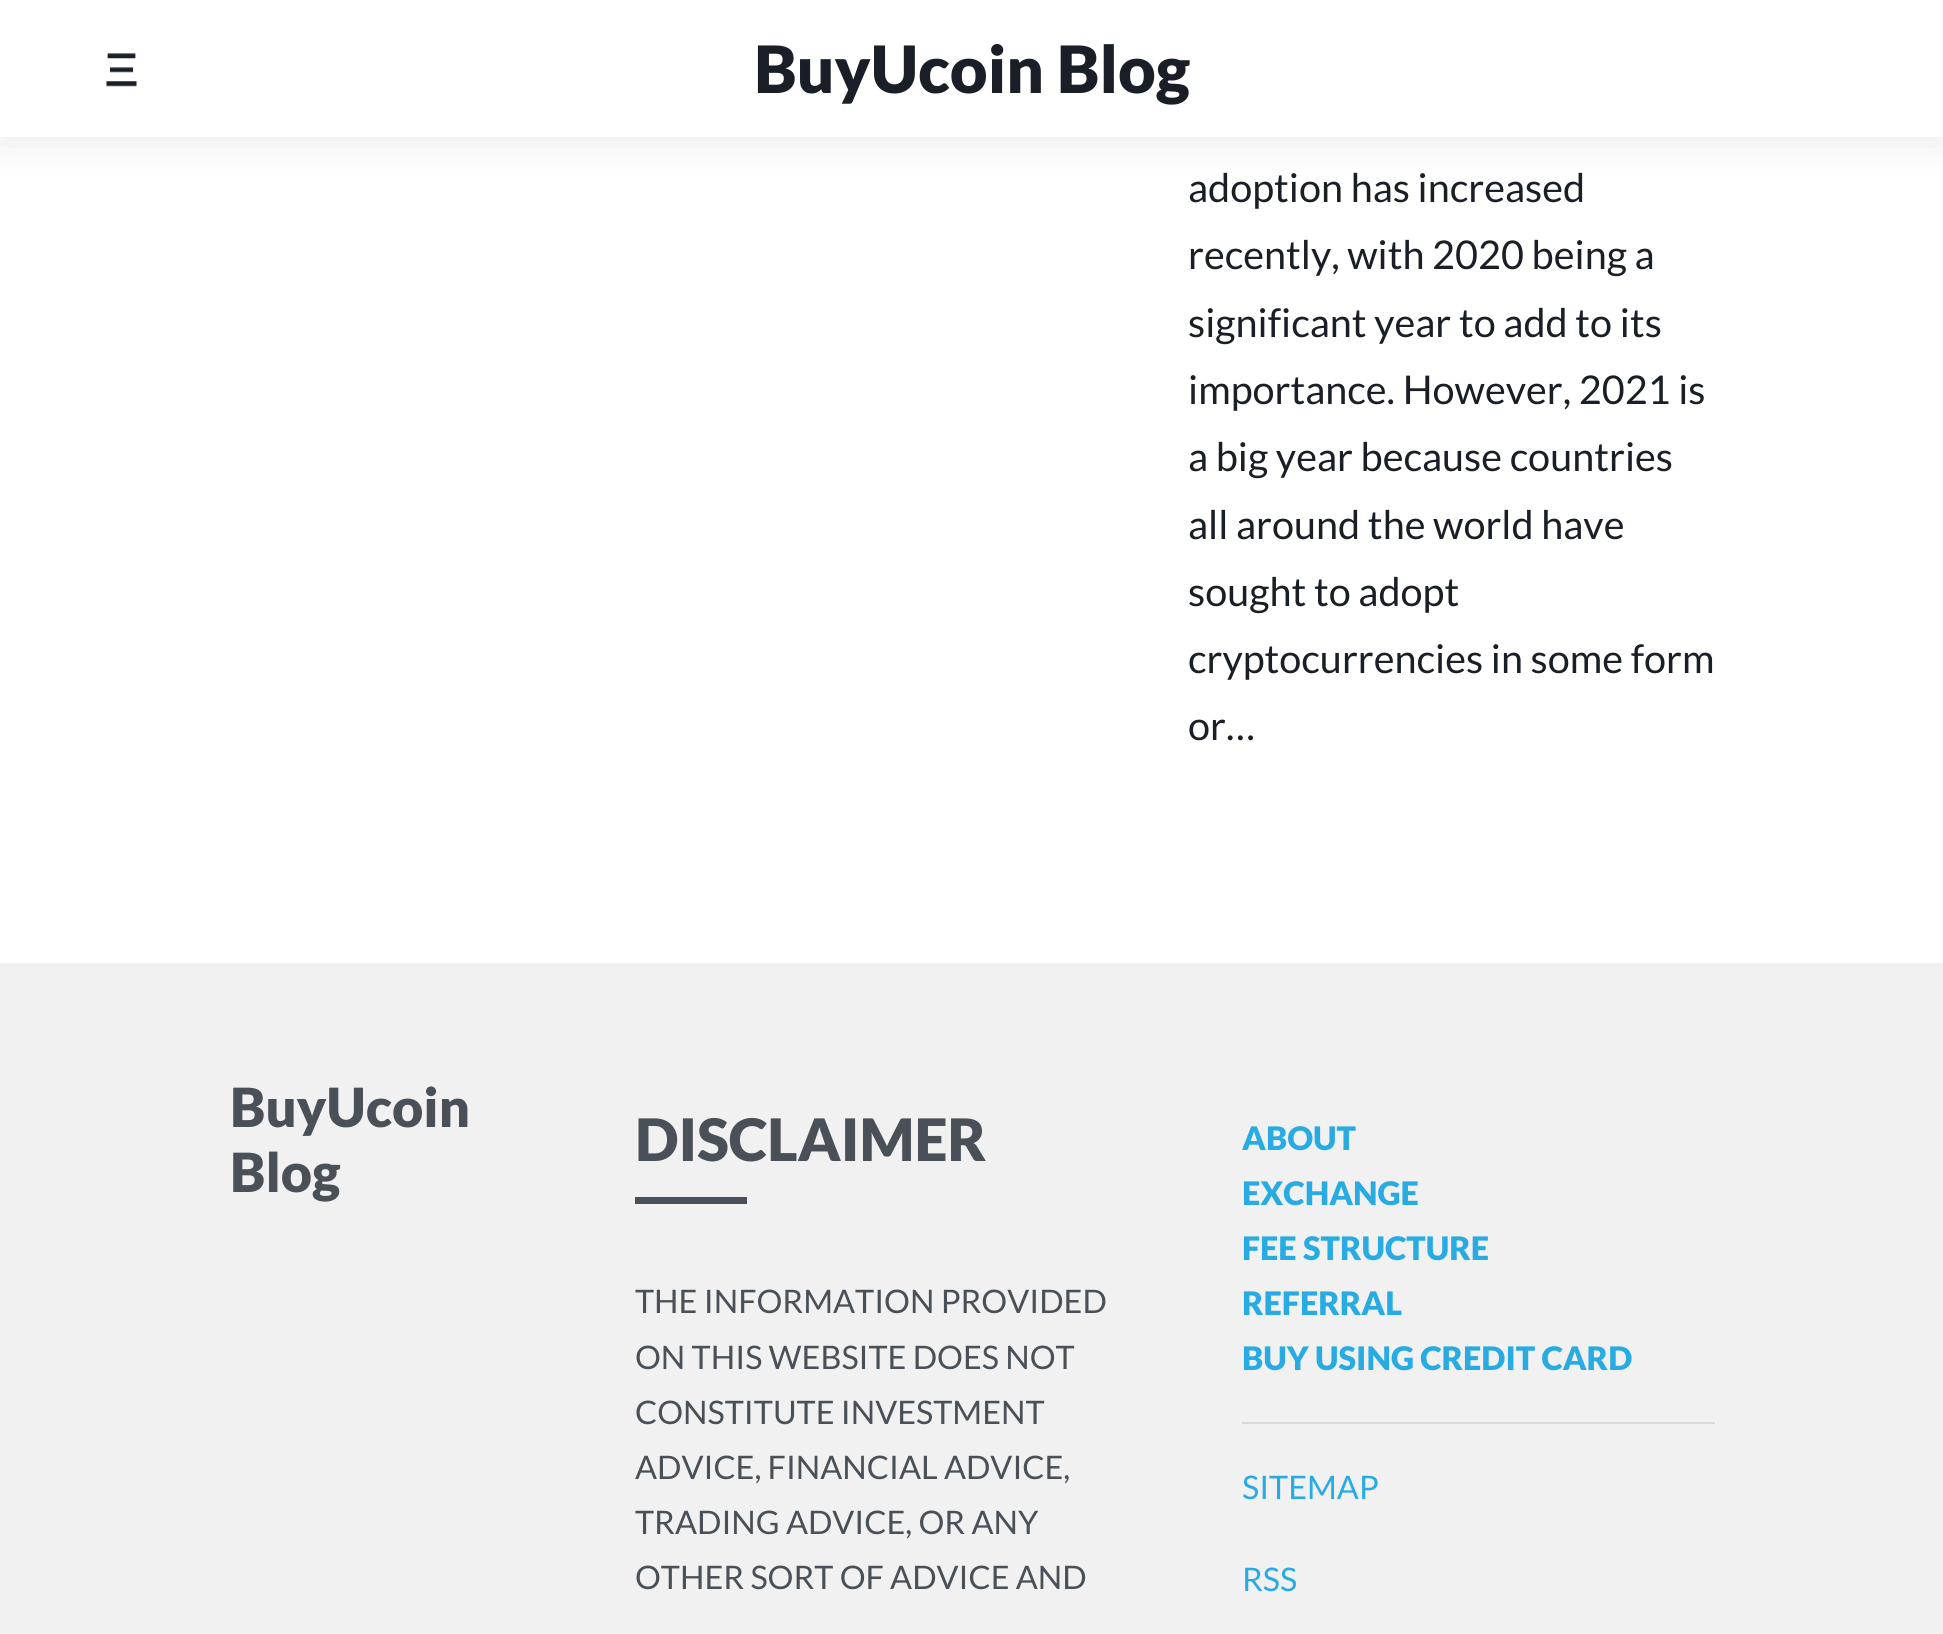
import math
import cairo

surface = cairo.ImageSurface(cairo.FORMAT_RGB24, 1943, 1634)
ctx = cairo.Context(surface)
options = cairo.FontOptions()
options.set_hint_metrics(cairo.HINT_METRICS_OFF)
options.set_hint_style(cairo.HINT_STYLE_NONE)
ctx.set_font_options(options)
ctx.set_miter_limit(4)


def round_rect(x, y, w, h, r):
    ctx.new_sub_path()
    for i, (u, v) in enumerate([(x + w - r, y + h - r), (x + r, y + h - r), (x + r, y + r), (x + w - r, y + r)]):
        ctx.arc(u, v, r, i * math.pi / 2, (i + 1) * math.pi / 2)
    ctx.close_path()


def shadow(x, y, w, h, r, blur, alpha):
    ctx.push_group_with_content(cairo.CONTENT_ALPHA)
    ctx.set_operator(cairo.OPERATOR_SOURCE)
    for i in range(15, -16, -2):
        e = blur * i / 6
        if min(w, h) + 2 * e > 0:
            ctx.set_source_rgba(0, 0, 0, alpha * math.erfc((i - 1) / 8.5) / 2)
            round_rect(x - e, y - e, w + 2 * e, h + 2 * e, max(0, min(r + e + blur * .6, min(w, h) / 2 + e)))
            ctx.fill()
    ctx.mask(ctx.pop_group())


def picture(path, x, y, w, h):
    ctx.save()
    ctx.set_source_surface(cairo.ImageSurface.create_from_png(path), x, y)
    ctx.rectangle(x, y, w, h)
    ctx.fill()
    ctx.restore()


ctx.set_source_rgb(1, 1, 1)
ctx.paint()
ctx.set_source_rgb(0, 0, 0)
shadow(0, 0, 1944, 137, 0, 22.5, 0.1)
ctx.set_source_rgb(1, 1, 1)
ctx.rectangle(0, 0, 1943, 137)
ctx.fill()
picture("img1.png", 106, 53, 31, 34)
ctx.select_font_face("Lato Black")
ctx.set_font_size(65.25)
ctx.set_source_rgb(0.098, 0.118, 0.153)
ctx.move_to(754, 93)
ctx.show_text("BuyUcoin Blog")
ctx.select_font_face("Lato")
ctx.set_font_size(39.6)
ctx.move_to(1188, 202)
ctx.show_text("adoption has increased")
ctx.move_to(1188, 269)
ctx.show_text("recently, with 2020 being a")
ctx.move_to(1188, 337)
ctx.show_text("significant year to add to its")
ctx.move_to(1188, 404)
ctx.show_text("importance. However, 2021 is")
ctx.move_to(1188, 471)
ctx.show_text("a big year because countries")
ctx.move_to(1188, 539)
ctx.show_text("all around the world have")
ctx.move_to(1188, 606)
ctx.show_text("sought to adopt")
ctx.move_to(1188, 673)
ctx.show_text("cryptocurrencies in some form")
ctx.move_to(1188, 740)
ctx.show_text("or…")
ctx.set_source_rgb(0.945, 0.945, 0.945)
ctx.rectangle(0, 963, 1943, 671)
ctx.fill()
ctx.select_font_face("Lato Black")
ctx.set_font_size(54)
ctx.set_source_rgb(0.286, 0.314, 0.341)
ctx.move_to(230, 1127)
ctx.show_text("BuyUcoin")
ctx.move_to(230, 1192)
ctx.show_text("Blog")
ctx.set_font_size(58.5)
ctx.move_to(635, 1161)
ctx.show_text("DISCLAIMER")
ctx.rectangle(635, 1197, 112, 7)
ctx.fill()
ctx.select_font_face("Lato")
ctx.set_font_size(32.4)
ctx.move_to(635, 1313)
ctx.show_text("THE INFORMATION PROVIDED")
ctx.move_to(635, 1369)
ctx.show_text("ON THIS WEBSITE DOES NOT")
ctx.move_to(635, 1424)
ctx.show_text("CONSTITUTE INVESTMENT")
ctx.move_to(635, 1479)
ctx.show_text("ADVICE, FINANCIAL ADVICE,")
ctx.move_to(635, 1534)
ctx.show_text("TRADING ADVICE, OR ANY")
ctx.move_to(635, 1589)
ctx.show_text("OTHER SORT OF ADVICE AND")
ctx.select_font_face("Lato Black")
ctx.set_source_rgb(0.157, 0.671, 0.89)
ctx.move_to(1242, 1150)
ctx.show_text("ABOUT")
ctx.move_to(1242, 1205)
ctx.show_text("EXCHANGE")
ctx.move_to(1242, 1260)
ctx.show_text("FEE STRUCTURE")
ctx.move_to(1242, 1315)
ctx.show_text("REFERRAL")
ctx.move_to(1242, 1370)
ctx.show_text("BUY USING CREDIT CARD")
ctx.set_source_rgb(0.851, 0.851, 0.851)
ctx.rectangle(1242, 1422, 473, 2)
ctx.fill()
ctx.select_font_face("Lato")
ctx.set_source_rgb(0.157, 0.671, 0.89)
ctx.move_to(1242, 1499)
ctx.show_text("SITEMAP")
ctx.move_to(1242, 1591)
ctx.show_text("RSS")
surface.write_to_png("page.png")
